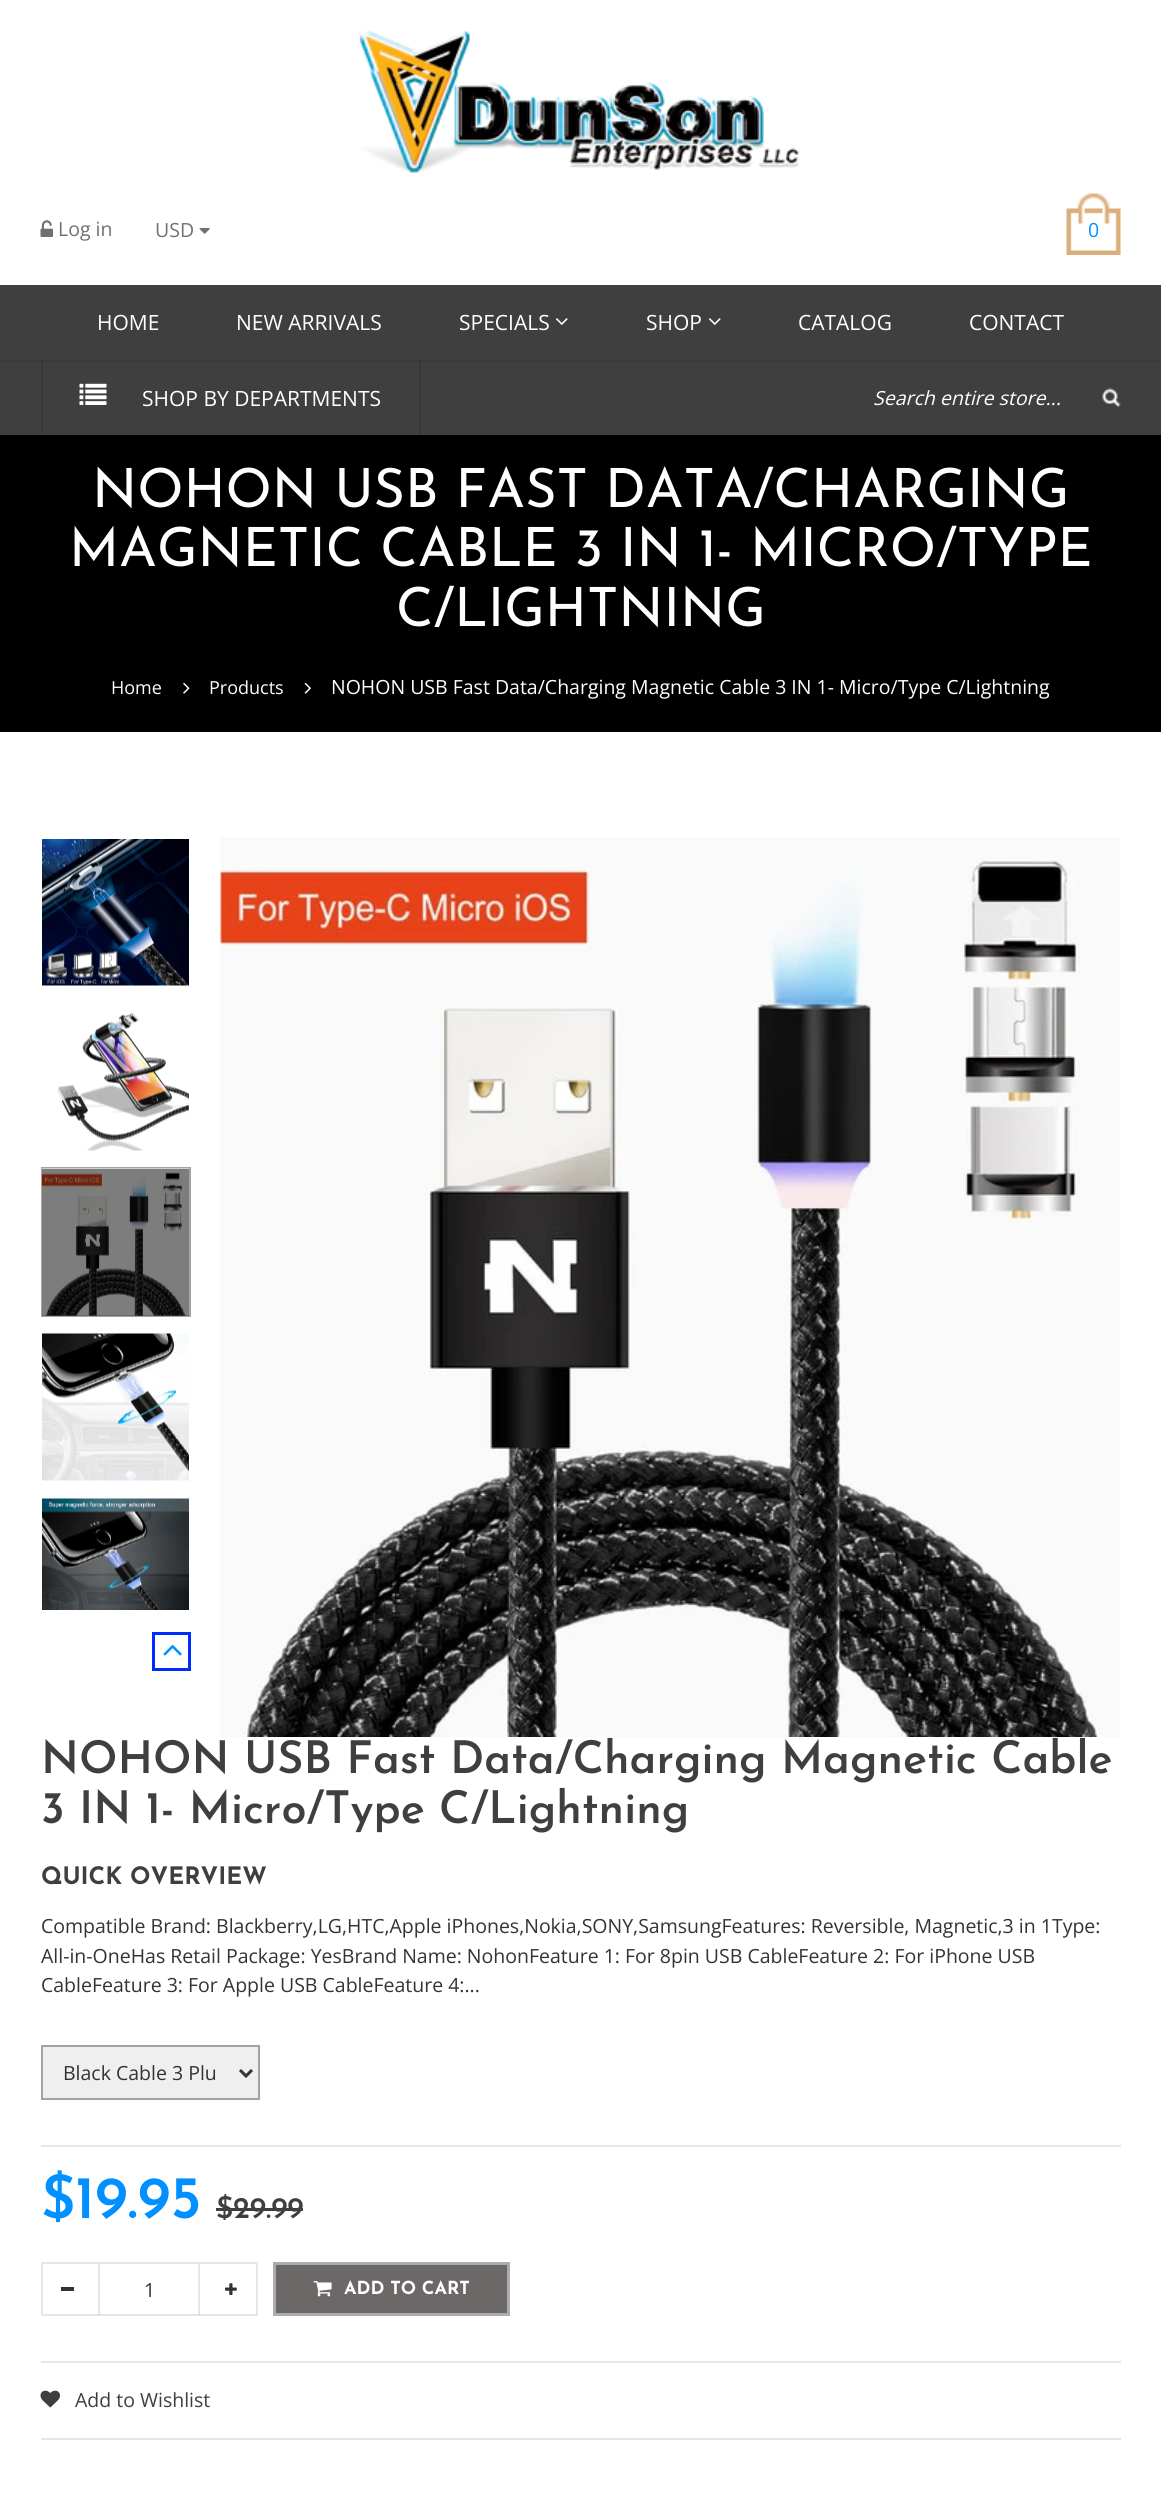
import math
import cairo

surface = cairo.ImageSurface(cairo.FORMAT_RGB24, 1161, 2498)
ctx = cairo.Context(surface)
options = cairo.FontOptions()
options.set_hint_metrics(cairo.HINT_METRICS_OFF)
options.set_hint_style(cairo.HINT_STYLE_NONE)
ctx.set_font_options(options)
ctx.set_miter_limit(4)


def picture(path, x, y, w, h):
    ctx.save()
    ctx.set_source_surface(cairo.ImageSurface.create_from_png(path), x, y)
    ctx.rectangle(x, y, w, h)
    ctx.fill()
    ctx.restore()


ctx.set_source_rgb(1, 1, 1)
ctx.paint()
picture("img1.png", 359, 30, 440, 143)
picture("img2.png", 40, 220, 14, 17)
ctx.select_font_face("Open Sans")
ctx.set_font_size(19.5)
ctx.set_source_rgb(0.439, 0.439, 0.439)
ctx.move_to(58, 236)
ctx.show_text("Log in")
ctx.move_to(155, 237)
ctx.show_text("USD")
picture("img3.png", 199, 228, 11, 6)
picture("img4.png", 1066, 193, 55, 62)
ctx.set_source_rgb(0, 0.565, 1)
ctx.move_to(1088, 237)
ctx.show_text("0")
ctx.set_source_rgb(0.247, 0.247, 0.247)
ctx.rectangle(0, 285, 1161, 150)
ctx.fill()
ctx.set_source_rgb(0.224, 0.224, 0.224)
ctx.rectangle(0, 360, 1161, 2)
ctx.fill()
ctx.set_font_size(21)
ctx.set_source_rgb(1, 1, 1)
ctx.move_to(97, 330)
ctx.show_text("HOME")
ctx.move_to(236, 330)
ctx.show_text("NEW ARRIVALS")
ctx.move_to(459, 330)
ctx.show_text("SPECIALS")
picture("img5.png", 556, 318, 12, 7)
ctx.move_to(646, 330)
ctx.show_text("SHOP")
picture("img5.png", 709, 318, 12, 7)
ctx.move_to(798, 330)
ctx.show_text("CATALOG")
ctx.move_to(969, 330)
ctx.show_text("CONTACT")
ctx.set_source_rgb(0.224, 0.224, 0.224)
ctx.rectangle(419, 360, 2, 75)
ctx.fill()
ctx.set_source_rgb(0.2, 0.2, 0.2)
ctx.rectangle(419, 360, 2, 2)
ctx.fill()
ctx.set_source_rgb(0.224, 0.224, 0.224)
ctx.rectangle(41, 360, 2, 75)
ctx.fill()
ctx.set_source_rgb(0.2, 0.2, 0.2)
ctx.rectangle(41, 360, 2, 2)
ctx.fill()
picture("img6.png", 79, 383, 28, 22)
ctx.set_source_rgb(1, 1, 1)
ctx.move_to(142, 406)
ctx.show_text("SHOP BY DEPARTMENTS")
ctx.select_font_face("Open Sans", cairo.FONT_SLANT_ITALIC)
ctx.set_font_size(19.5)
ctx.move_to(873, 405)
ctx.show_text("Search entire store...")
picture("img7.png", 1102, 388, 19, 19)
ctx.set_source_rgb(0, 0, 0)
ctx.rectangle(0, 435, 1161, 297)
ctx.fill()
ctx.select_font_face("Josefin Sans")
ctx.set_font_size(54)
ctx.set_source_rgb(1, 1, 1)
ctx.move_to(92, 507)
ctx.show_text("NOHON USB FAST DATA/CHARGING")
ctx.move_to(69, 566)
ctx.show_text("MAGNETIC CABLE 3 IN 1- MICRO/TYPE")
ctx.move_to(396, 626)
ctx.show_text("C/LIGHTNING")
ctx.select_font_face("Open Sans")
ctx.set_font_size(18)
ctx.move_to(111, 694)
ctx.show_text("Home")
picture("img8.png", 183, 682, 7, 12)
ctx.move_to(209, 694)
ctx.show_text("Products")
picture("img9.png", 304, 682, 7, 12)
ctx.set_font_size(19.5)
ctx.move_to(331, 694)
ctx.show_text("NOHON USB Fast Data/Charging Magnetic Cable 3 IN 1- Micro/Type C/Lightning")
picture("img10.png", 42, 839, 147, 147)
picture("img11.png", 57, 1013, 132, 138)
ctx.rectangle(42, 1168, 148, 148)
ctx.set_source_rgb(0.639, 0.639, 0.639)
ctx.stroke()
picture("img12.png", 42, 1168, 147, 148)
ctx.set_source_rgba(0, 0, 0, 0.5)
ctx.rectangle(42, 1169, 147, 147)
ctx.fill()
picture("img13.png", 42, 1333, 147, 148)
picture("img14.png", 42, 1498, 147, 112)
ctx.rectangle(153.5, 1633.5, 36, 36)
ctx.set_source_rgb(0, 0.176, 1)
ctx.set_line_width(3)
ctx.stroke()
picture("img15.png", 163, 1644, 19, 12)
picture("img16.png", 220, 837, 900, 900)
ctx.select_font_face("Josefin Sans SemiBold")
ctx.set_font_size(45)
ctx.set_source_rgb(0.247, 0.247, 0.247)
ctx.move_to(41, 1773)
ctx.show_text("NOHON USB Fast Data/Charging Magnetic Cable")
ctx.move_to(41, 1823)
ctx.show_text("3 IN 1- Micro/Type C/Lightning")
ctx.select_font_face("Josefin Sans", cairo.FONT_SLANT_NORMAL, cairo.FONT_WEIGHT_BOLD)
ctx.set_font_size(24)
ctx.move_to(41, 1884)
ctx.show_text("QUICK OVERVIEW")
ctx.select_font_face("Open Sans")
ctx.set_font_size(19.5)
ctx.set_source_rgb(0.2, 0.2, 0.2)
ctx.move_to(41, 1933)
ctx.show_text("Compatible Brand: Blackberry,LG,HTC,Apple iPhones,Nokia,SONY,SamsungFeatures: Reversible, Magnetic,3 in 1Type:")
ctx.move_to(41, 1963)
ctx.show_text("All-in-OneHas Retail Package: YesBrand Name: NohonFeature 1: For 8pin USB CableFeature 2: For iPhone USB")
ctx.move_to(41, 1992)
ctx.show_text("CableFeature 3: For Apple USB CableFeature 4:...")
ctx.set_source_rgb(0.937, 0.937, 0.937)
ctx.rectangle(42, 2046, 217, 53)
ctx.fill_preserve()
ctx.set_source_rgb(0.639, 0.639, 0.639)
ctx.set_line_width(2)
ctx.stroke()
ctx.new_path()
ctx.move_to(240, 2070)
ctx.line_to(246, 2076)
ctx.line_to(252, 2070)
ctx.set_source_rgb(0.2, 0.2, 0.2)
ctx.set_line_width(3)
ctx.stroke()
ctx.move_to(63, 2080)
ctx.show_text("Black Cable 3 Plu")
ctx.select_font_face("Josefin Sans SemiBold")
ctx.set_font_size(60)
ctx.set_source_rgb(0, 0.565, 1)
ctx.move_to(41, 2218)
ctx.show_text("$19.95")
ctx.set_font_size(30)
ctx.set_source_rgb(0.247, 0.247, 0.247)
ctx.move_to(216, 2218)
ctx.show_text("$29.99")
ctx.rectangle(216, 2208, 87, 3)
ctx.fill()
ctx.rectangle(42, 2263, 215, 52)
ctx.set_source_rgb(0.902, 0.902, 0.902)
ctx.set_line_width(2)
ctx.stroke()
ctx.set_source_rgb(0.2, 0.2, 0.2)
ctx.rectangle(61, 2287, 13, 4)
ctx.fill()
ctx.set_source_rgba(0, 0, 0, 0.1)
ctx.rectangle(198, 2264, 2, 51)
ctx.fill()
ctx.rectangle(98, 2264, 2, 51)
ctx.fill()
ctx.select_font_face("Open Sans")
ctx.set_font_size(19.5)
ctx.set_source_rgb(0.2, 0.2, 0.2)
ctx.move_to(144, 2297)
ctx.show_text("1")
picture("img17.png", 225, 2283, 12, 12)
ctx.set_source_rgb(0.902, 0.902, 0.902)
ctx.rectangle(41, 2145, 1080, 2)
ctx.fill()
ctx.set_source_rgb(0.424, 0.408, 0.408)
ctx.rectangle(274.5, 2263.5, 234, 51)
ctx.fill_preserve()
ctx.set_source_rgb(0.675, 0.675, 0.675)
ctx.set_line_width(3)
ctx.stroke()
picture("img18.png", 313, 2281, 19, 16)
ctx.select_font_face("Josefin Sans", cairo.FONT_SLANT_NORMAL, cairo.FONT_WEIGHT_BOLD)
ctx.set_font_size(18)
ctx.set_source_rgb(1, 1, 1)
ctx.move_to(344, 2294)
ctx.show_text("ADD TO CART")
ctx.set_source_rgb(0.902, 0.902, 0.902)
ctx.rectangle(41, 2361, 1080, 2)
ctx.fill()
ctx.rectangle(41, 2438, 1080, 2)
ctx.fill()
picture("img19.png", 40, 2390, 20, 18)
ctx.select_font_face("Open Sans")
ctx.set_font_size(19.5)
ctx.set_source_rgb(0.247, 0.247, 0.247)
ctx.move_to(75, 2407)
ctx.show_text("Add to Wishlist")
surface.write_to_png("page.png")
